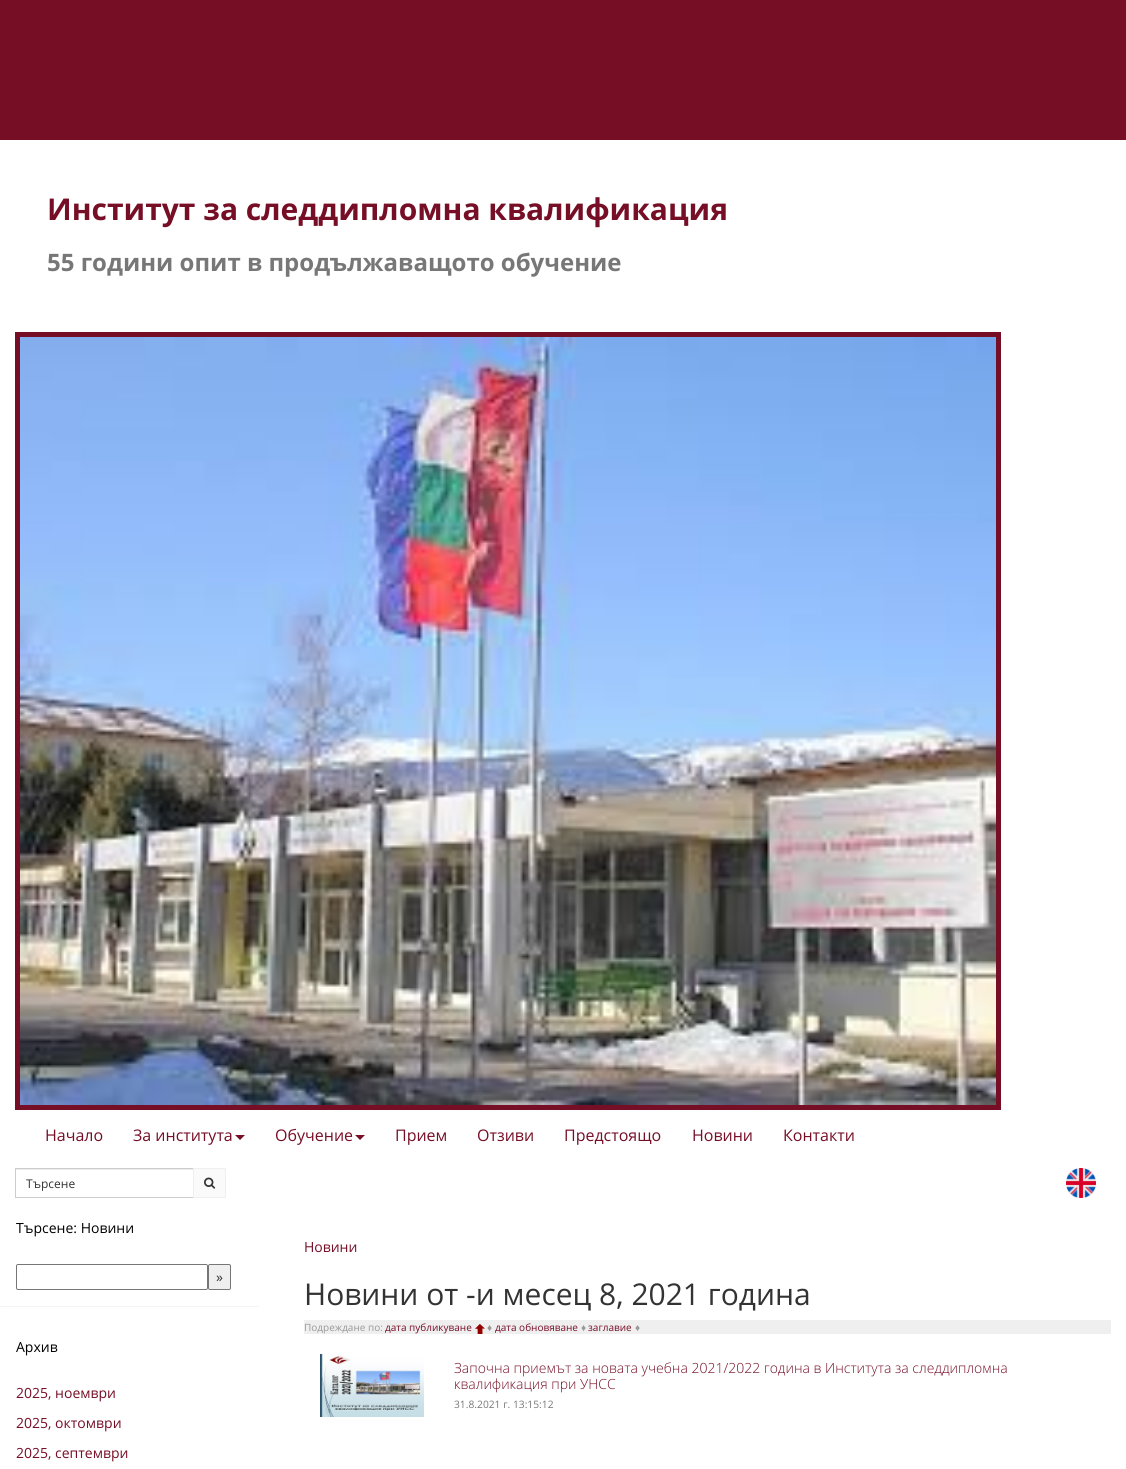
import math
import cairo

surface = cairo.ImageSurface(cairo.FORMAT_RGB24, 1126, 1469)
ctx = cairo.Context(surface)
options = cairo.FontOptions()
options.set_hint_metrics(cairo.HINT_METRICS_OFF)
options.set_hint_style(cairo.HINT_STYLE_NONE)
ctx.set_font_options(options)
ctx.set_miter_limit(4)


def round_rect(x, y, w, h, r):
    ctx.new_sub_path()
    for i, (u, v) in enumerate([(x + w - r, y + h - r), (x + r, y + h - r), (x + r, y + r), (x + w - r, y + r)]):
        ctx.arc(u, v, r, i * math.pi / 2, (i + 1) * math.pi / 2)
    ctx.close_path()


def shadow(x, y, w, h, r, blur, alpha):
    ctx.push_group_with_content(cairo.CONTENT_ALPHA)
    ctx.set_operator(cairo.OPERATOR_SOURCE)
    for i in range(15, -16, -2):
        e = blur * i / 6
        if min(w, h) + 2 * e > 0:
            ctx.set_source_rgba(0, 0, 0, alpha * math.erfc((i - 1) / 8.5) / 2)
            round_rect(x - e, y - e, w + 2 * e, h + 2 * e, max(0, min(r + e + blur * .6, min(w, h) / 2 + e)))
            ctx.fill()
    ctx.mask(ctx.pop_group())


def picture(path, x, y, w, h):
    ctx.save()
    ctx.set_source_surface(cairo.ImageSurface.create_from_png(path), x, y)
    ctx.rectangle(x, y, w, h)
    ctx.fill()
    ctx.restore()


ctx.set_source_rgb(1, 1, 1)
ctx.paint()
ctx.set_source_rgb(0.463, 0.055, 0.149)
ctx.rectangle(0, 0, 1126, 140)
ctx.fill()
ctx.select_font_face("Open Sans", cairo.FONT_SLANT_NORMAL, cairo.FONT_WEIGHT_BOLD)
ctx.set_font_size(30)
ctx.move_to(47, 220)
ctx.show_text("Институт за следдипломна квалификация")
ctx.set_font_size(24)
ctx.set_source_rgb(0.467, 0.467, 0.467)
ctx.move_to(47, 271)
ctx.show_text("55 години опит в продължаващото обучение")
ctx.rectangle(17.5, 334.5, 981, 773)
ctx.set_source_rgb(0.463, 0.055, 0.149)
ctx.set_line_width(5)
ctx.stroke()
picture("img1.png", 20, 337, 976, 768)
ctx.select_font_face("Open Sans")
ctx.set_font_size(16)
ctx.move_to(45, 1141)
ctx.show_text("Начало")
ctx.move_to(133, 1141)
ctx.show_text("За института")
ctx.new_path()
ctx.move_to(235, 1135)
ctx.line_to(245, 1135)
ctx.line_to(240, 1140)
ctx.close_path()
ctx.fill()
ctx.move_to(275, 1141)
ctx.show_text("Обучение")
ctx.new_path()
ctx.move_to(355, 1135)
ctx.line_to(365, 1135)
ctx.line_to(360, 1140)
ctx.close_path()
ctx.fill()
ctx.move_to(395, 1141)
ctx.show_text("Прием")
ctx.move_to(477, 1141)
ctx.show_text("Отзиви")
ctx.move_to(564, 1141)
ctx.show_text("Предстоящo")
ctx.move_to(692, 1141)
ctx.show_text("Новини")
ctx.move_to(783, 1141)
ctx.show_text("Контакти")
ctx.set_source_rgb(0.925, 0.925, 0.925)
ctx.rectangle(16, 1169, 177, 1)
ctx.fill()
ctx.rectangle(15.5, 1168.5, 178, 29)
ctx.set_source_rgb(0.8, 0.8, 0.8)
ctx.set_line_width(1)
ctx.stroke()
ctx.set_font_size(12)
ctx.set_source_rgb(0.2, 0.2, 0.2)
ctx.move_to(26, 1188)
ctx.show_text("Търсене")
ctx.set_source_rgb(0.98, 0.98, 0.98)
ctx.rectangle(193.5, 1168.5, 32, 29)
ctx.fill_preserve()
ctx.set_source_rgb(0.937, 0.937, 0.937)
ctx.stroke()
picture("img2.png", 204, 1177, 12, 12)
picture("img3.png", 1066, 1168, 30, 30)
ctx.save()
ctx.rectangle(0, 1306, 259, 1)
ctx.clip()
ctx.set_source_rgb(0, 0, 0)
shadow(0, 1208, 259, 99, 0, 0.5, 0.05)
ctx.restore()
ctx.set_font_size(14)
ctx.set_source_rgb(0, 0, 0)
ctx.move_to(16, 1233)
ctx.show_text("Търсене: Новини")
round_rect(16.5, 1264.5, 191, 25, 1.5)
ctx.set_source_rgb(0.463, 0.463, 0.463)
ctx.stroke()
ctx.set_source_rgb(0.937, 0.937, 0.937)
round_rect(208.5, 1264.5, 22, 25, 1.5)
ctx.fill_preserve()
ctx.set_source_rgb(0.463, 0.463, 0.463)
ctx.stroke()
ctx.set_source_rgb(0.2, 0.2, 0.2)
ctx.move_to(216, 1282)
ctx.show_text("»")
ctx.set_source_rgb(0, 0, 0)
ctx.move_to(16, 1352)
ctx.show_text("Архив")
ctx.set_source_rgb(0.463, 0.055, 0.149)
ctx.move_to(16, 1398)
ctx.show_text("2025, ноември")
ctx.move_to(16, 1428)
ctx.show_text("2025, октомври")
ctx.move_to(16, 1458)
ctx.show_text("2025, септември")
ctx.move_to(304, 1252)
ctx.show_text("Новини")
ctx.set_font_size(30)
ctx.set_source_rgb(0.2, 0.2, 0.2)
ctx.move_to(304, 1305)
ctx.show_text("Новини от -и месец 8, 2021 година")
ctx.set_source_rgb(0.937, 0.937, 0.937)
ctx.rectangle(304, 1320, 807, 14)
ctx.fill()
ctx.set_font_size(10)
ctx.set_source_rgb(0.6, 0.6, 0.6)
ctx.move_to(304, 1331)
ctx.show_text("Подреждане по:")
ctx.set_source_rgb(0.463, 0.055, 0.149)
ctx.move_to(385, 1331)
ctx.show_text("дата публикуване")
picture("img4.png", 475, 1324, 10, 10)
ctx.select_font_face("Liberation Sans")
ctx.set_source_rgb(0.6, 0.6, 0.6)
ctx.move_to(487, 1331)
ctx.show_text("♦")
ctx.select_font_face("Open Sans")
ctx.set_source_rgb(0.463, 0.055, 0.149)
ctx.move_to(495, 1331)
ctx.show_text("дата обновяване")
ctx.select_font_face("Liberation Sans")
ctx.set_source_rgb(0.6, 0.6, 0.6)
ctx.move_to(581, 1331)
ctx.show_text("♦")
ctx.select_font_face("Open Sans")
ctx.set_source_rgb(0.463, 0.055, 0.149)
ctx.move_to(588, 1331)
ctx.show_text("заглавие")
ctx.select_font_face("Liberation Sans")
ctx.set_source_rgb(0.6, 0.6, 0.6)
ctx.move_to(635, 1331)
ctx.show_text("♦")
picture("img5.png", 320, 1354, 104, 63)
ctx.select_font_face("Open Sans Light")
ctx.set_font_size(14)
ctx.set_source_rgb(0.463, 0.055, 0.149)
ctx.move_to(454, 1373)
ctx.show_text("Започна приемът за новата учебна 2021/2022 година в Института за следдипломна")
ctx.move_to(454, 1389)
ctx.show_text("квалификация при УНСС")
ctx.select_font_face("Open Sans")
ctx.set_font_size(10.25)
ctx.set_source_rgb(0.467, 0.467, 0.467)
ctx.move_to(454, 1408)
ctx.show_text("31.8.2021 г. 13:15:12")
surface.write_to_png("page.png")
